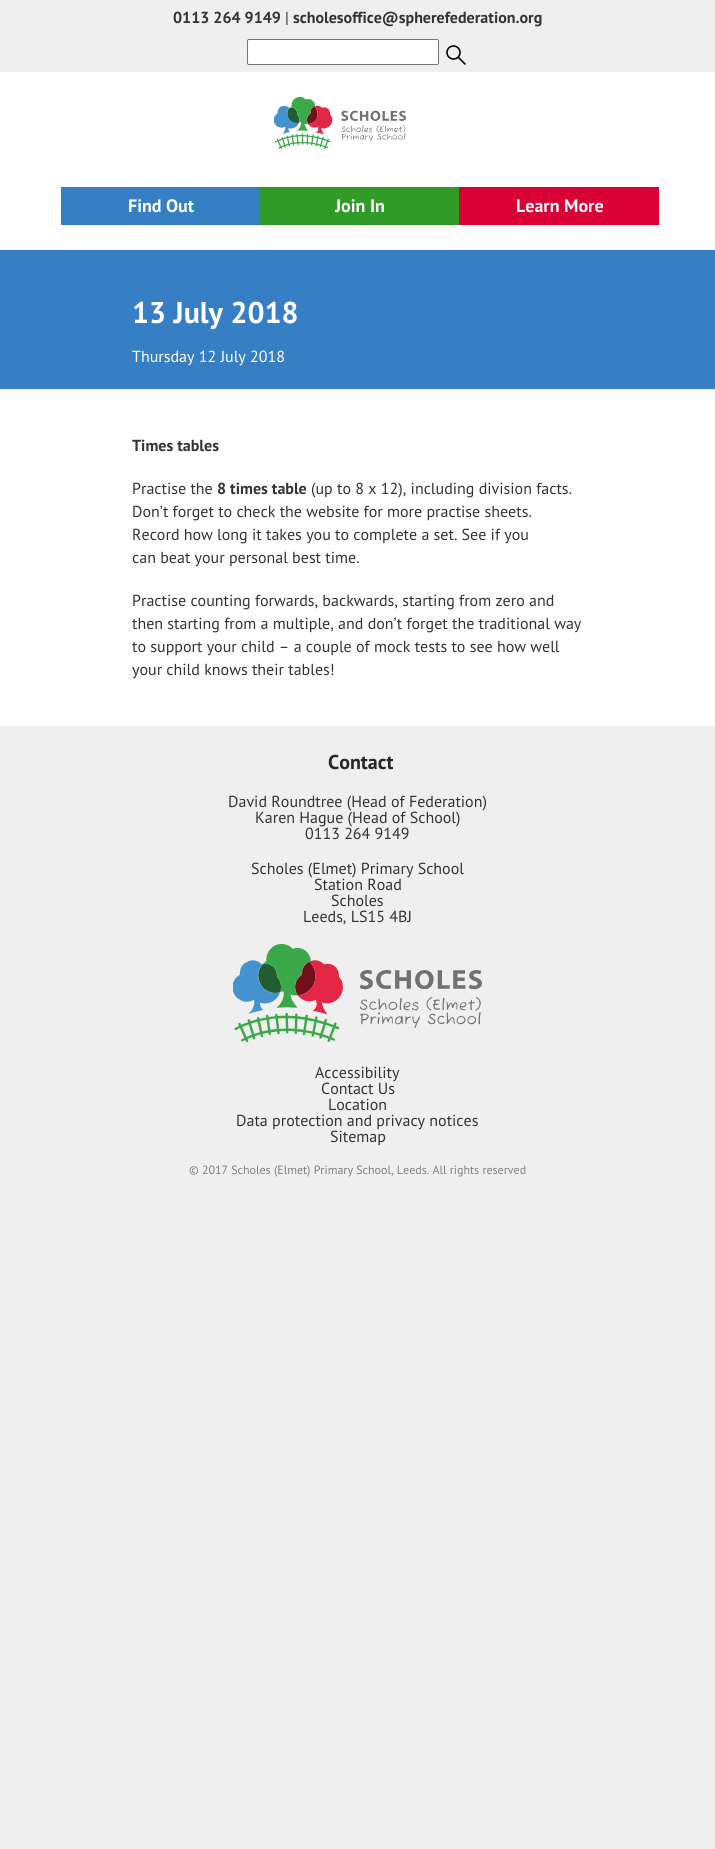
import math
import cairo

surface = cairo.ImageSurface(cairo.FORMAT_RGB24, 715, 1849)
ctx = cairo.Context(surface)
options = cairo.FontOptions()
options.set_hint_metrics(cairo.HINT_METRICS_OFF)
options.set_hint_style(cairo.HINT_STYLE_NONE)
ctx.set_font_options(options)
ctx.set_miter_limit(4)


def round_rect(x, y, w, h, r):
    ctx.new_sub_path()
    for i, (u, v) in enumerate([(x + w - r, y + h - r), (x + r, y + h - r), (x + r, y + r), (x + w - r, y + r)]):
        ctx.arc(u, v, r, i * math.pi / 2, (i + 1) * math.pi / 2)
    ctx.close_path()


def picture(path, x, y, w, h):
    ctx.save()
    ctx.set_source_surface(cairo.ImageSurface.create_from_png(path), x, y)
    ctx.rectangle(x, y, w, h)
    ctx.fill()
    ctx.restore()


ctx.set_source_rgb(0.937, 0.937, 0.937)
ctx.paint()
ctx.select_font_face("PT Sans", cairo.FONT_SLANT_NORMAL, cairo.FONT_WEIGHT_BOLD)
ctx.set_font_size(16)
ctx.set_source_rgb(0.2, 0.2, 0.2)
ctx.move_to(173, 23)
ctx.show_text("0113 264 9149")
ctx.select_font_face("PT Sans")
ctx.move_to(285, 23)
ctx.show_text("|")
ctx.select_font_face("PT Sans", cairo.FONT_SLANT_NORMAL, cairo.FONT_WEIGHT_BOLD)
ctx.move_to(293, 23)
ctx.show_text("scholesoffice@spherefederation.org")
ctx.set_source_rgb(1, 1, 1)
round_rect(247.5, 39.5, 191, 25, 1.5)
ctx.fill_preserve()
ctx.set_source_rgb(0.463, 0.463, 0.463)
ctx.set_line_width(1)
ctx.stroke()
ctx.new_path()
ctx.move_to(458.5, 57.5)
ctx.line_to(465, 64)
ctx.set_source_rgb(0, 0, 0)
ctx.set_line_width(1.6)
ctx.set_line_cap(cairo.LINE_CAP_ROUND)
ctx.set_line_join(cairo.LINE_JOIN_ROUND)
ctx.stroke()
ctx.arc(453.5, 52.5, 6.5, 0, 2 * math.pi)
ctx.set_line_cap(cairo.LINE_CAP_BUTT)
ctx.set_line_join(cairo.LINE_JOIN_MITER)
ctx.stroke()
ctx.set_source_rgb(1, 1, 1)
ctx.rectangle(0, 72, 715, 178)
ctx.fill()
picture("img1.png", 274, 97, 132, 52)
ctx.set_source_rgb(0.212, 0.498, 0.769)
ctx.rectangle(61, 187, 199, 38)
ctx.fill()
ctx.set_font_size(18)
ctx.set_source_rgb(1, 1, 1)
ctx.move_to(128, 212)
ctx.show_text("Find Out")
ctx.set_source_rgb(0.192, 0.608, 0.157)
ctx.rectangle(260, 187, 199, 38)
ctx.fill()
ctx.set_source_rgb(1, 1, 1)
ctx.move_to(335, 212)
ctx.show_text("Join In")
ctx.set_source_rgb(0.855, 0, 0.208)
ctx.rectangle(459, 187, 200, 38)
ctx.fill()
ctx.set_source_rgb(1, 1, 1)
ctx.move_to(516, 212)
ctx.show_text("Learn More")
ctx.set_source_rgb(0.212, 0.498, 0.769)
ctx.rectangle(0, 250, 715, 139)
ctx.fill()
ctx.set_font_size(30)
ctx.set_source_rgb(1, 1, 1)
ctx.move_to(132, 323)
ctx.show_text("13 July 2018")
ctx.select_font_face("PT Sans")
ctx.set_font_size(16)
ctx.move_to(132, 362)
ctx.show_text("Thursday 12 July 2018")
ctx.rectangle(0, 389, 715, 337)
ctx.fill()
ctx.select_font_face("PT Sans", cairo.FONT_SLANT_NORMAL, cairo.FONT_WEIGHT_BOLD)
ctx.set_source_rgb(0.2, 0.2, 0.2)
ctx.move_to(132, 451)
ctx.show_text("Times tables")
ctx.select_font_face("PT Sans")
ctx.move_to(132, 494)
ctx.show_text("Practise the")
ctx.select_font_face("PT Sans", cairo.FONT_SLANT_NORMAL, cairo.FONT_WEIGHT_BOLD)
ctx.move_to(217, 494)
ctx.show_text("8 times table")
ctx.select_font_face("PT Sans")
ctx.move_to(311, 494)
ctx.show_text("(up to 8 x 12), including division facts.")
ctx.move_to(132, 517)
ctx.show_text("Don’t forget to check the website for more practise sheets.")
ctx.move_to(132, 540)
ctx.show_text("Record how long it takes you to complete a set. See if you")
ctx.move_to(132, 563)
ctx.show_text("can beat your personal best time.")
ctx.move_to(132, 606)
ctx.show_text("Practise counting forwards, backwards, starting from zero and")
ctx.move_to(132, 629)
ctx.show_text("then starting from a multiple, and don’t forget the traditional way")
ctx.move_to(132, 652)
ctx.show_text("to support your child – a couple of mock tests to see how well")
ctx.move_to(132, 675)
ctx.show_text("your child knows their tables!")
ctx.select_font_face("PT Sans", cairo.FONT_SLANT_NORMAL, cairo.FONT_WEIGHT_BOLD)
ctx.set_font_size(20)
ctx.set_source_rgb(0.149, 0.149, 0.149)
ctx.move_to(328, 769)
ctx.show_text("Contact")
ctx.select_font_face("PT Sans")
ctx.set_font_size(16)
ctx.set_source_rgb(0.2, 0.2, 0.2)
ctx.move_to(228, 807)
ctx.show_text("David Roundtree (Head of Federation)")
ctx.move_to(255, 823)
ctx.show_text("Karen Hague (Head of School)")
ctx.move_to(305, 839)
ctx.show_text("0113 264 9149")
ctx.move_to(251, 874)
ctx.show_text("Scholes (Elmet) Primary School")
ctx.move_to(314, 890)
ctx.show_text("Station Road")
ctx.move_to(331, 906)
ctx.show_text("Scholes")
ctx.move_to(303, 922)
ctx.show_text("Leeds, LS15 4BJ")
picture("img2.png", 233, 944, 249, 98)
ctx.move_to(315, 1078)
ctx.show_text("Accessibility")
ctx.move_to(321, 1094)
ctx.show_text("Contact Us")
ctx.move_to(328, 1110)
ctx.show_text("Location")
ctx.move_to(236, 1126)
ctx.show_text("Data protection and privacy notices")
ctx.move_to(330, 1142)
ctx.show_text("Sitemap")
ctx.set_font_size(12)
ctx.set_source_rgb(0.502, 0.502, 0.502)
ctx.move_to(189, 1174)
ctx.show_text("© 2017 Scholes (Elmet) Primary School, Leeds. All rights reserved")
surface.write_to_png("page.png")
